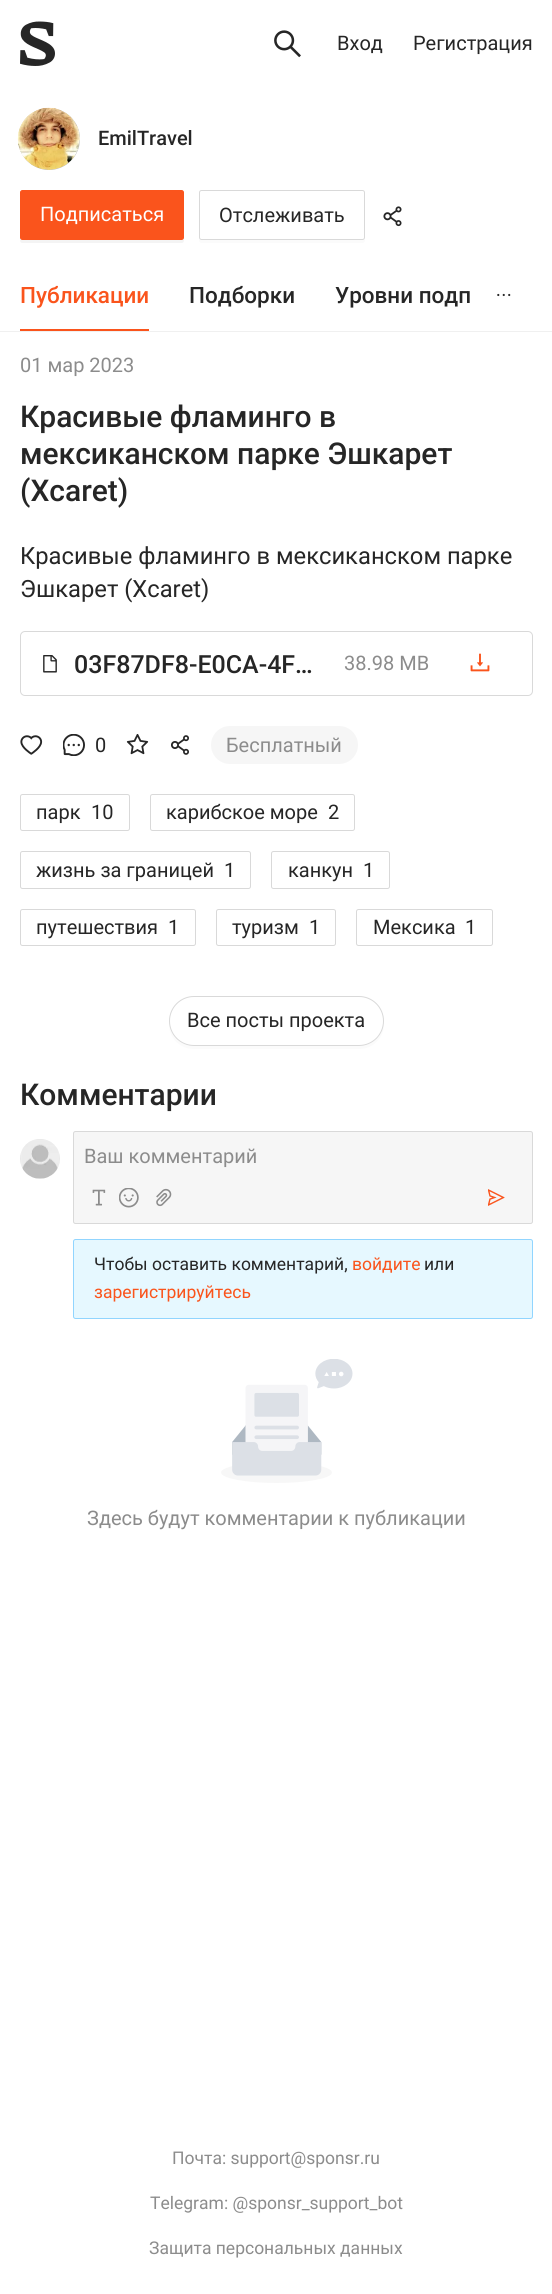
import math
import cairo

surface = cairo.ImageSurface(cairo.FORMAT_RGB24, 552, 2294)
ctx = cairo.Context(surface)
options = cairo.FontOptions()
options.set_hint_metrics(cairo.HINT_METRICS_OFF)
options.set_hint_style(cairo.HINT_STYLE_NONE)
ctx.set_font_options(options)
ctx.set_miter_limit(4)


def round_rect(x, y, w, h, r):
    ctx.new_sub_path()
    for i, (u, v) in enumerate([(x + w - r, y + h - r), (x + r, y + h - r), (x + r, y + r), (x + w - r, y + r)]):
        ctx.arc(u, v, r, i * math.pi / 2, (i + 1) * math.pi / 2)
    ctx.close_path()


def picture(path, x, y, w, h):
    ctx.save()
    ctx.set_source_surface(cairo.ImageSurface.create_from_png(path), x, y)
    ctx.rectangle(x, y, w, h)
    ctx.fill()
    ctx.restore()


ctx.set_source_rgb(1, 1, 1)
ctx.paint()
picture("img1.png", 20, 21, 35, 45)
picture("img2.png", 274, 30, 27, 28)
ctx.select_font_face("Roboto")
ctx.set_font_size(20)
ctx.set_source_rgb(0.149, 0.149, 0.149)
ctx.move_to(337, 50)
ctx.show_text("Вход")
ctx.move_to(413, 50)
ctx.show_text("Регистрация")
ctx.set_source_rgb(0.749, 0.749, 0.749)
ctx.new_path()
ctx.arc(49, 139, 31, 0, 2 * math.pi)
ctx.fill()
picture("img3.png", 17, 107, 63, 63)
ctx.select_font_face("Roboto Medium")
ctx.set_source_rgb(0.149, 0.149, 0.149)
ctx.move_to(98, 145)
ctx.show_text("EmilTravel")
ctx.set_source_rgb(0.957, 0.957, 0.957)
ctx.new_path()
ctx.move_to(20, 238)
ctx.line_to(20, 240)
ctx.curve_to(20, 242, 21, 243, 22, 243)
ctx.line_to(182, 243)
ctx.curve_to(183, 243, 184, 242, 184, 240)
ctx.line_to(184, 194)
ctx.line_to(184, 238)
ctx.curve_to(184, 239, 183, 240, 181, 240)
ctx.line_to(22, 240)
ctx.curve_to(21, 240, 20, 239, 20, 238)
ctx.close_path()
ctx.fill()
ctx.set_source_rgb(0.98, 0.329, 0.11)
round_rect(20.5, 190.5, 163, 49, 2)
ctx.fill_preserve()
ctx.set_line_width(1)
ctx.stroke()
ctx.select_font_face("Roboto")
ctx.set_source_rgb(1, 1, 1)
ctx.move_to(40, 221)
ctx.show_text("Подписаться")
ctx.set_source_rgb(0.984, 0.984, 0.984)
ctx.new_path()
ctx.move_to(199, 239)
ctx.line_to(199, 240)
ctx.curve_to(199, 242, 200, 243, 202, 243)
ctx.line_to(362, 243)
ctx.curve_to(364, 243, 365, 242, 365, 240)
ctx.line_to(365, 238)
ctx.curve_to(365, 239, 364, 240, 362, 240)
ctx.line_to(201, 240)
ctx.curve_to(200, 240, 199, 239, 199, 239)
ctx.close_path()
ctx.fill()
round_rect(199.5, 190.5, 165, 49, 2)
ctx.set_source_rgb(0.851, 0.851, 0.851)
ctx.stroke()
ctx.set_source_rgb(0.149, 0.149, 0.149)
ctx.move_to(219, 222)
ctx.show_text("Отслеживать")
picture("img4.png", 383, 206, 19, 21)
ctx.select_font_face("Roboto Medium")
ctx.set_font_size(22.5)
ctx.set_source_rgb(0.98, 0.329, 0.11)
ctx.move_to(20, 303)
ctx.show_text("Публикации")
ctx.set_source_rgb(0.149, 0.149, 0.149)
ctx.move_to(189, 303)
ctx.show_text("Подборки")
ctx.move_to(335, 303)
ctx.show_text("Уровни подп")
ctx.set_source_rgb(0.98, 0.329, 0.11)
ctx.rectangle(20, 329, 129, 2)
ctx.fill()
picture("img5.png", 497, 293, 14, 4)
ctx.set_source_rgb(0.941, 0.941, 0.941)
ctx.rectangle(0, 331, 552, 1)
ctx.fill()
ctx.select_font_face("Roboto")
ctx.set_font_size(20)
ctx.set_source_rgb(0.549, 0.549, 0.549)
ctx.move_to(20, 372)
ctx.show_text("01 мар 2023")
ctx.select_font_face("Roboto Medium")
ctx.set_font_size(30)
ctx.set_source_rgb(0.149, 0.149, 0.149)
ctx.move_to(20, 427)
ctx.show_text("Красивые фламинго в")
ctx.move_to(20, 464)
ctx.show_text("мексиканском парке Эшкарет")
ctx.move_to(20, 501)
ctx.show_text("(Xcaret)")
ctx.select_font_face("Roboto")
ctx.set_font_size(23.75)
ctx.move_to(20, 564)
ctx.show_text("Красивые фламинго в мексиканском парке")
ctx.move_to(20, 597)
ctx.show_text("Эшкарет (Xcaret)")
round_rect(20.5, 631.5, 512, 64, 4.5)
ctx.set_source_rgb(0.851, 0.851, 0.851)
ctx.stroke()
picture("img6.png", 43, 655, 14, 18)
ctx.select_font_face("Roboto Medium")
ctx.set_font_size(25)
ctx.set_source_rgb(0.149, 0.149, 0.149)
ctx.move_to(74, 673)
ctx.show_text("03F87DF8-E0CA-4F…")
ctx.select_font_face("Roboto")
ctx.set_font_size(20)
ctx.set_source_rgb(0.549, 0.549, 0.549)
ctx.move_to(344, 670)
ctx.show_text("38.98 MB")
picture("img7.png", 470, 653, 20, 19)
picture("img8.png", 20, 735, 23, 20)
picture("img9.png", 63, 734, 22, 22)
ctx.set_source_rgb(0.149, 0.149, 0.149)
ctx.move_to(95, 752)
ctx.show_text("0")
picture("img10.png", 126, 734, 23, 21)
picture("img11.png", 171, 735, 18, 20)
ctx.set_source_rgb(0.961, 0.961, 0.961)
round_rect(211, 726, 147, 38, 19)
ctx.fill()
ctx.set_source_rgb(0.549, 0.549, 0.549)
ctx.move_to(226, 752)
ctx.show_text("Бесплатный")
round_rect(20.5, 794.5, 109, 36, 2)
ctx.set_source_rgb(0.851, 0.851, 0.851)
ctx.stroke()
ctx.set_source_rgb(0.149, 0.149, 0.149)
ctx.move_to(36, 819)
ctx.show_text("парк")
ctx.move_to(91, 819)
ctx.show_text("10")
round_rect(150.5, 794.5, 204, 36, 2)
ctx.set_source_rgb(0.851, 0.851, 0.851)
ctx.stroke()
ctx.set_source_rgb(0.149, 0.149, 0.149)
ctx.move_to(166, 819)
ctx.show_text("карибское море")
ctx.move_to(328, 819)
ctx.show_text("2")
round_rect(20.5, 851.5, 230, 37, 2)
ctx.set_source_rgb(0.851, 0.851, 0.851)
ctx.stroke()
ctx.set_source_rgb(0.149, 0.149, 0.149)
ctx.move_to(36, 877)
ctx.show_text("жизнь за границей")
ctx.move_to(224, 877)
ctx.show_text("1")
round_rect(271.5, 851.5, 118, 37, 2)
ctx.set_source_rgb(0.851, 0.851, 0.851)
ctx.stroke()
ctx.set_source_rgb(0.149, 0.149, 0.149)
ctx.move_to(288, 877)
ctx.show_text("канкун")
ctx.move_to(363, 877)
ctx.show_text("1")
round_rect(20.5, 909.5, 175, 36, 2)
ctx.set_source_rgb(0.851, 0.851, 0.851)
ctx.stroke()
ctx.set_source_rgb(0.149, 0.149, 0.149)
ctx.move_to(36, 934)
ctx.show_text("путешествия")
ctx.move_to(168, 934)
ctx.show_text("1")
round_rect(216.5, 909.5, 119, 36, 2)
ctx.set_source_rgb(0.851, 0.851, 0.851)
ctx.stroke()
ctx.set_source_rgb(0.149, 0.149, 0.149)
ctx.move_to(232, 934)
ctx.show_text("туризм")
ctx.move_to(309, 934)
ctx.show_text("1")
round_rect(356.5, 909.5, 136, 36, 2)
ctx.set_source_rgb(0.851, 0.851, 0.851)
ctx.stroke()
ctx.set_source_rgb(0.149, 0.149, 0.149)
ctx.move_to(373, 934)
ctx.show_text("Мексика")
ctx.move_to(465, 934)
ctx.show_text("1")
ctx.set_source_rgb(0.984, 0.984, 0.984)
ctx.new_path()
ctx.move_to(169, 1025)
ctx.curve_to(169, 1038, 180, 1049, 194, 1049)
ctx.line_to(359, 1049)
ctx.curve_to(373, 1049, 384, 1038, 384, 1024)
ctx.line_to(384, 1020)
ctx.line_to(384, 1021)
ctx.curve_to(384, 1035, 373, 1046, 359, 1046)
ctx.line_to(194, 1046)
ctx.curve_to(181, 1046, 171, 1037, 169, 1025)
ctx.close_path()
ctx.fill()
round_rect(169.5, 996.5, 214, 49, 24.5)
ctx.set_source_rgb(0.851, 0.851, 0.851)
ctx.stroke()
ctx.set_source_rgb(0.149, 0.149, 0.149)
ctx.move_to(187, 1027)
ctx.show_text("Все посты проекта")
ctx.select_font_face("Roboto Medium")
ctx.set_font_size(30)
ctx.move_to(20, 1105)
ctx.show_text("Комментарии")
picture("img12.png", 20, 1139, 40, 40)
ctx.set_source_rgb(0.961, 0.961, 0.961)
round_rect(73.5, 1131.5, 459, 92, 2)
ctx.fill_preserve()
ctx.set_source_rgb(0.851, 0.851, 0.851)
ctx.stroke()
ctx.select_font_face("Roboto")
ctx.set_font_size(20)
ctx.set_source_rgb(0.549, 0.549, 0.549)
ctx.move_to(84, 1163)
ctx.show_text("Ваш комментарий")
picture("img13.png", 92, 1189, 14, 17)
picture("img14.png", 119, 1188, 20, 20)
picture("img15.png", 156, 1188, 16, 19)
picture("img16.png", 488, 1189, 17, 17)
ctx.set_source_rgb(0.902, 0.969, 1)
round_rect(73.5, 1239.5, 459, 79, 2)
ctx.fill_preserve()
ctx.set_source_rgb(0.569, 0.835, 1)
ctx.stroke()
ctx.set_font_size(17.5)
ctx.set_source_rgb(0.149, 0.149, 0.149)
ctx.move_to(94, 1270)
ctx.show_text("Чтобы оставить комментарий,")
ctx.set_source_rgb(0.98, 0.329, 0.11)
ctx.move_to(352, 1270)
ctx.show_text("войдите")
ctx.set_source_rgb(0.149, 0.149, 0.149)
ctx.move_to(424, 1270)
ctx.show_text("или")
ctx.set_source_rgb(0.98, 0.329, 0.11)
ctx.move_to(94, 1298)
ctx.show_text("зарегистрируйтесь")
picture("img17.png", 221, 1359, 132, 124)
ctx.set_font_size(20)
ctx.set_source_rgb(0.549, 0.549, 0.549)
ctx.move_to(87, 1525)
ctx.show_text("Здесь будут комментарии к публикации")
ctx.set_font_size(17.5)
ctx.move_to(172, 2164)
ctx.show_text("Почта: support@sponsr.ru")
ctx.move_to(150, 2209)
ctx.show_text("Telegram: @sponsr_support_bot")
ctx.move_to(149, 2254)
ctx.show_text("Защита персональных данных")
surface.write_to_png("page.png")
